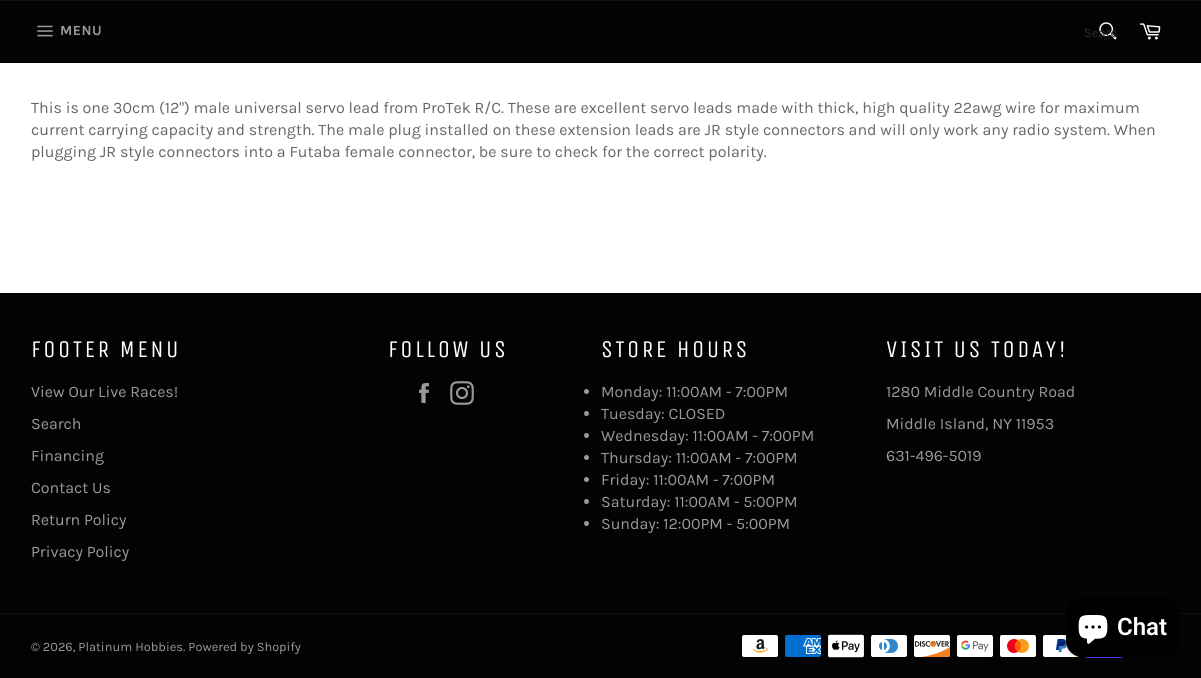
import math
import cairo

surface = cairo.ImageSurface(cairo.FORMAT_RGB24, 1201, 678)
ctx = cairo.Context(surface)
options = cairo.FontOptions()
options.set_hint_metrics(cairo.HINT_METRICS_OFF)
options.set_hint_style(cairo.HINT_STYLE_NONE)
ctx.set_font_options(options)
ctx.set_miter_limit(4)


def spaced_text(x, y, s, letter, word):
    ctx.move_to(x, y)
    for ch in s:
        ctx.show_text(ch)
        ctx.rel_move_to(letter + word * (ch == ' '), 0)


def round_rect(x, y, w, h, r):
    ctx.new_sub_path()
    for i, (u, v) in enumerate([(x + w - r, y + h - r), (x + r, y + h - r), (x + r, y + r), (x + w - r, y + r)]):
        ctx.arc(u, v, r, i * math.pi / 2, (i + 1) * math.pi / 2)
    ctx.close_path()


def shadow(x, y, w, h, r, blur, alpha):
    ctx.push_group_with_content(cairo.CONTENT_ALPHA)
    ctx.set_operator(cairo.OPERATOR_SOURCE)
    for i in range(15, -16, -2):
        e = blur * i / 6
        if min(w, h) + 2 * e > 0:
            ctx.set_source_rgba(0, 0, 0, alpha * math.erfc((i - 1) / 8.5) / 2)
            round_rect(x - e, y - e, w + 2 * e, h + 2 * e, max(0, min(r + e + blur * .6, min(w, h) / 2 + e)))
            ctx.fill()
    ctx.mask(ctx.pop_group())


def picture(path, x, y, w, h):
    ctx.save()
    ctx.set_source_surface(cairo.ImageSurface.create_from_png(path), x, y)
    ctx.rectangle(x, y, w, h)
    ctx.fill()
    ctx.restore()


ctx.set_source_rgb(1, 1, 1)
ctx.paint()
ctx.set_source_rgb(0.012, 0.012, 0.012)
ctx.rectangle(0, 1, 1201, 62)
ctx.fill()
ctx.set_source_rgb(0.063, 0.063, 0.063)
ctx.rectangle(0, 0, 1201, 1)
ctx.fill()
picture("img1.png", 37, 25, 16, 12)
ctx.select_font_face("Karla", cairo.FONT_SLANT_NORMAL, cairo.FONT_WEIGHT_BOLD)
ctx.set_font_size(14)
ctx.set_source_rgb(0.604, 0.604, 0.604)
spaced_text(60, 35, "MENU", 0.5, 0)
picture("img2.png", 1099, 22, 18, 18)
ctx.select_font_face("Karla")
ctx.set_font_size(13)
ctx.set_source_rgb(0.173, 0.173, 0.173)
ctx.move_to(1084, 37)
ctx.show_text("Searc")
picture("img3.png", 1139, 23, 22, 17)
ctx.set_font_size(16)
ctx.set_source_rgb(0.4, 0.4, 0.4)
ctx.move_to(31, 113)
ctx.show_text("This is one 30cm (12\") male universal servo lead from ProTek R/C. These are excellent servo leads made with thick, high quality 22awg wire for maximum")
ctx.move_to(31, 135)
ctx.show_text("current carrying capacity and strength. The male plug installed on these extension leads are JR style connectors and will only work any radio system. When")
ctx.move_to(31, 157)
ctx.show_text("plugging JR style connectors into a Futaba female connector, be sure to check for the correct polarity.")
ctx.set_source_rgb(0.012, 0.012, 0.012)
ctx.rectangle(0, 293, 1201, 385)
ctx.fill()
ctx.select_font_face("Unica One")
ctx.set_font_size(24)
ctx.set_source_rgb(1, 1, 1)
spaced_text(31, 357, "FOOTER MENU", 2.4, 0)
ctx.select_font_face("Karla")
ctx.set_font_size(16)
ctx.set_source_rgb(0.604, 0.604, 0.604)
ctx.move_to(31, 397)
ctx.show_text("View Our Live Races!")
ctx.move_to(31, 429)
ctx.show_text("Search")
ctx.move_to(31, 461)
ctx.show_text("Financing")
ctx.move_to(31, 493)
ctx.show_text("Contact Us")
ctx.move_to(31, 525)
ctx.show_text("Return Policy")
ctx.move_to(31, 557)
ctx.show_text("Privacy Policy")
ctx.select_font_face("Unica One")
ctx.set_font_size(24)
ctx.set_source_rgb(1, 1, 1)
spaced_text(388, 357, "FOLLOW US", 2.4, 0)
picture("img4.png", 419, 383, 10, 20)
picture("img5.png", 450, 381, 24, 24)
spaced_text(601, 357, "STORE HOURS", 2.4, 0)
ctx.set_source_rgb(0.604, 0.604, 0.604)
ctx.new_path()
ctx.arc(586.5, 391.5, 2.5, 0, 2 * math.pi)
ctx.fill()
ctx.select_font_face("Karla")
ctx.set_font_size(16)
ctx.move_to(601, 397)
ctx.show_text("Monday: 11:00AM - 7:00PM")
ctx.new_path()
ctx.arc(586.5, 413.5, 2.5, 0, 2 * math.pi)
ctx.fill()
ctx.move_to(601, 419)
ctx.show_text("Tuesday: CLOSED")
ctx.new_path()
ctx.arc(586.5, 435.5, 2.5, 0, 2 * math.pi)
ctx.fill()
ctx.move_to(601, 441)
ctx.show_text("Wednesday: 11:00AM - 7:00PM")
ctx.new_path()
ctx.arc(586.5, 457.5, 2.5, 0, 2 * math.pi)
ctx.fill()
ctx.move_to(601, 463)
ctx.show_text("Thursday: 11:00AM - 7:00PM")
ctx.new_path()
ctx.arc(586.5, 479.5, 2.5, 0, 2 * math.pi)
ctx.fill()
ctx.move_to(601, 485)
ctx.show_text("Friday: 11:00AM - 7:00PM")
ctx.new_path()
ctx.arc(586.5, 501.5, 2.5, 0, 2 * math.pi)
ctx.fill()
ctx.move_to(601, 507)
ctx.show_text("Saturday: 11:00AM - 5:00PM")
ctx.new_path()
ctx.arc(586.5, 523.5, 2.5, 0, 2 * math.pi)
ctx.fill()
ctx.move_to(601, 529)
ctx.show_text("Sunday: 12:00PM - 5:00PM")
ctx.select_font_face("Unica One")
ctx.set_font_size(24)
ctx.set_source_rgb(1, 1, 1)
spaced_text(886, 357, "VISIT US TODAY!", 2.4, 0)
ctx.select_font_face("Karla")
ctx.set_font_size(16)
ctx.set_source_rgb(0.604, 0.604, 0.604)
ctx.move_to(886, 397)
ctx.show_text("1280 Middle Country Road")
ctx.move_to(886, 429)
ctx.show_text("Middle Island, NY 11953")
ctx.move_to(886, 461)
ctx.show_text("631-496-5019")
ctx.set_source_rgb(0.063, 0.063, 0.063)
ctx.rectangle(0, 613, 1201, 1)
ctx.fill()
ctx.set_font_size(12.8)
ctx.set_source_rgb(0.604, 0.604, 0.604)
ctx.move_to(31, 651)
ctx.show_text("© 2026, Platinum Hobbies. Powered by Shopify")
picture("img6.png", 742, 635, 36, 22)
picture("img7.png", 785, 635, 36, 22)
picture("img8.png", 828, 634, 36, 24)
picture("img9.png", 871, 635, 36, 22)
picture("img10.png", 914, 635, 37, 22)
picture("img11.png", 957, 635, 36, 22)
picture("img12.png", 1000, 635, 36, 22)
picture("img13.png", 1043, 635, 36, 22)
picture("img14.png", 1163, 656, 2, 1)
picture("img15.png", 1085, 657, 38, 1)
ctx.set_source_rgb(0, 0, 0)
shadow(1066, 597, 113, 60, 16, 2.5, 0.15)
ctx.set_source_rgb(0, 0, 0)
round_rect(1066, 597, 113, 60, 16)
ctx.fill()
picture("img16.png", 1078, 615, 30, 29)
ctx.select_font_face("Roboto SemiBold")
ctx.set_font_size(24)
ctx.set_source_rgb(1, 1, 1)
ctx.move_to(1117, 635)
ctx.show_text("Chat")
surface.write_to_png("page.png")
